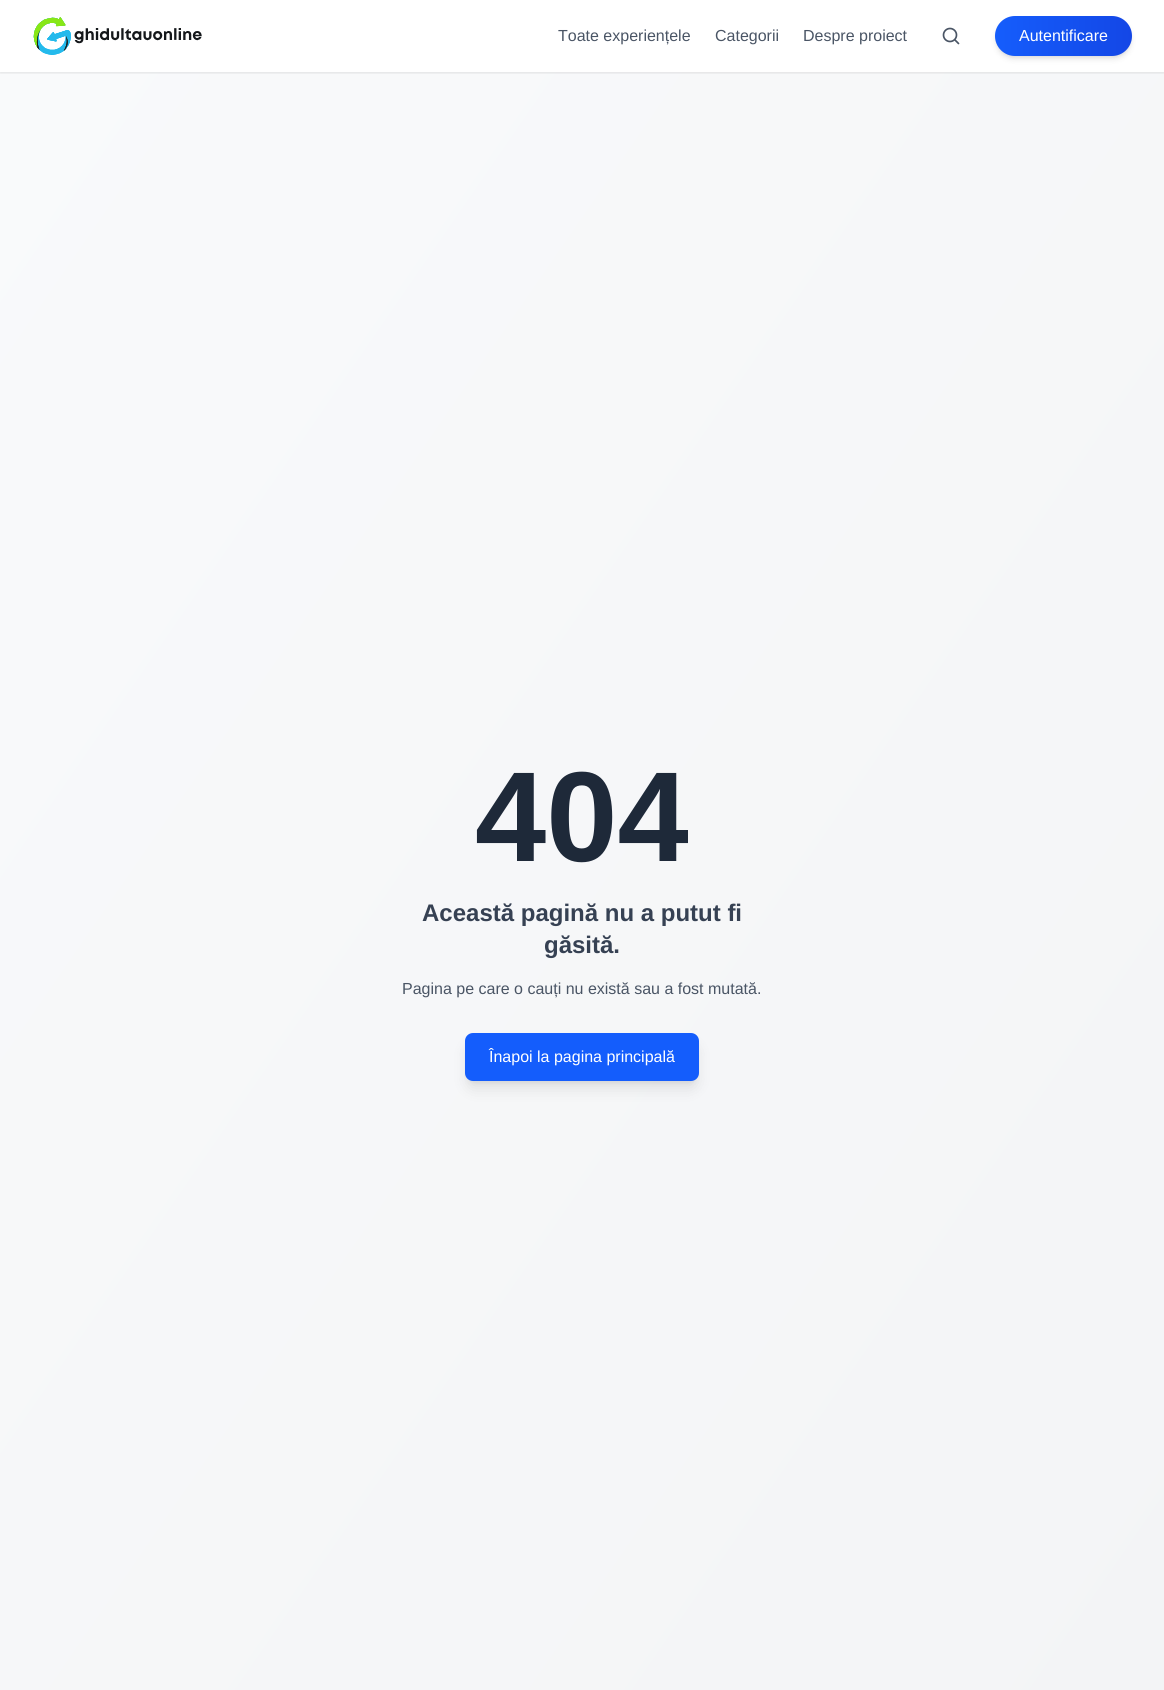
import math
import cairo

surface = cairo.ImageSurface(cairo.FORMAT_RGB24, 1164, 1690)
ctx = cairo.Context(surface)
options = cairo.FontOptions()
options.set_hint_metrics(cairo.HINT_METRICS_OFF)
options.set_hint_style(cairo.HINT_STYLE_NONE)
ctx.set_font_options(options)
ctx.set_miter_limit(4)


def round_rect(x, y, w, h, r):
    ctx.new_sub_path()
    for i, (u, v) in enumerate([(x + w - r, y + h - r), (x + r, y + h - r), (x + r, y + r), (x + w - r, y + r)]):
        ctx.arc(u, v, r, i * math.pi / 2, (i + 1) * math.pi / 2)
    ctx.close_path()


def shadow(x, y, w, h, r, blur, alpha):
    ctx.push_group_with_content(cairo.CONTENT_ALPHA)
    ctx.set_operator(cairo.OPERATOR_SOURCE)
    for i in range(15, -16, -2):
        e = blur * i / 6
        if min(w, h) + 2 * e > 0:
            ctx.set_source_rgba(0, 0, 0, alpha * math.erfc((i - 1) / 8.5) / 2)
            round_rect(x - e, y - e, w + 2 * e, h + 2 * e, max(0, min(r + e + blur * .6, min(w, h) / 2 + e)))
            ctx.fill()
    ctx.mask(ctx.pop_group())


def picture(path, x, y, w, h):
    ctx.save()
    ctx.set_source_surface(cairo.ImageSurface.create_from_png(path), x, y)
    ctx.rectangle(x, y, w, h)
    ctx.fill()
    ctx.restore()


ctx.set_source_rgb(1, 1, 1)
ctx.paint()
gradient = cairo.LinearGradient(-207, 373, 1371, 1461)
gradient.add_color_stop_rgba(0, 0.976, 0.98, 0.984, 1)
gradient.add_color_stop_rgba(1, 0.953, 0.957, 0.965, 1)
ctx.set_source(gradient)
ctx.rectangle(0, 72, 1164, 1618)
ctx.fill()
ctx.save()
ctx.rectangle(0, 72, 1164, 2)
ctx.clip()
ctx.set_source_rgb(0, 0, 0)
shadow(0, 1, 1164, 72, 0, 1.5, 0.1)
ctx.restore()
picture("img1.png", 33, 17, 169, 38)
ctx.select_font_face("Liberation Sans")
ctx.set_font_size(16)
ctx.set_source_rgb(0.29, 0.333, 0.396)
ctx.move_to(558, 41)
ctx.show_text("Toate experiențele")
ctx.move_to(715, 41)
ctx.show_text("Categorii")
ctx.move_to(803, 41)
ctx.show_text("Despre proiect")
ctx.new_path()
ctx.move_to(958.5, 43.5)
ctx.line_to(955, 40)
ctx.set_line_width(1.7)
ctx.set_line_cap(cairo.LINE_CAP_ROUND)
ctx.set_line_join(cairo.LINE_JOIN_ROUND)
ctx.stroke()
ctx.arc(950, 35, 6.5, 0, 2 * math.pi)
ctx.set_line_cap(cairo.LINE_CAP_BUTT)
ctx.set_line_join(cairo.LINE_JOIN_MITER)
ctx.stroke()
ctx.set_source_rgb(0, 0, 0)
shadow(997, 20, 133, 36, 18, 2, 0.1)
shadow(996, 21, 135, 38, 19, 3, 0.1)
gradient = cairo.LinearGradient(995, 36, 1132, 36)
gradient.add_color_stop_rgba(0, 0.082, 0.365, 0.988, 1)
gradient.add_color_stop_rgba(1, 0.078, 0.278, 0.902, 1)
ctx.set_source(gradient)
round_rect(995, 16, 137, 40, 20)
ctx.fill()
ctx.set_source_rgb(1, 1, 1)
ctx.move_to(1019, 41)
ctx.show_text("Autentificare")
ctx.select_font_face("Liberation Sans", cairo.FONT_SLANT_NORMAL, cairo.FONT_WEIGHT_BOLD)
ctx.set_font_size(128)
ctx.set_source_rgb(0.118, 0.161, 0.224)
ctx.move_to(475, 861)
ctx.show_text("404")
ctx.set_font_size(24)
ctx.set_source_rgb(0.212, 0.255, 0.325)
ctx.move_to(422, 921)
ctx.show_text("Această pagină nu a putut fi")
ctx.move_to(544, 953)
ctx.show_text("găsită.")
ctx.select_font_face("Liberation Sans")
ctx.set_font_size(16)
ctx.set_source_rgb(0.29, 0.333, 0.396)
ctx.move_to(402, 994)
ctx.show_text("Pagina pe care o cauți nu există sau a fost mutată.")
ctx.set_source_rgb(0, 0, 0)
shadow(469, 1041, 226, 40, 4, 3, 0.1)
shadow(468, 1046, 228, 42, 5, 7.5, 0.1)
ctx.set_source_rgb(0.082, 0.365, 0.988)
round_rect(465, 1033, 234, 48, 8)
ctx.fill()
ctx.set_source_rgb(1, 1, 1)
ctx.move_to(489, 1062)
ctx.show_text("Înapoi la pagina principală")
surface.write_to_png("page.png")
